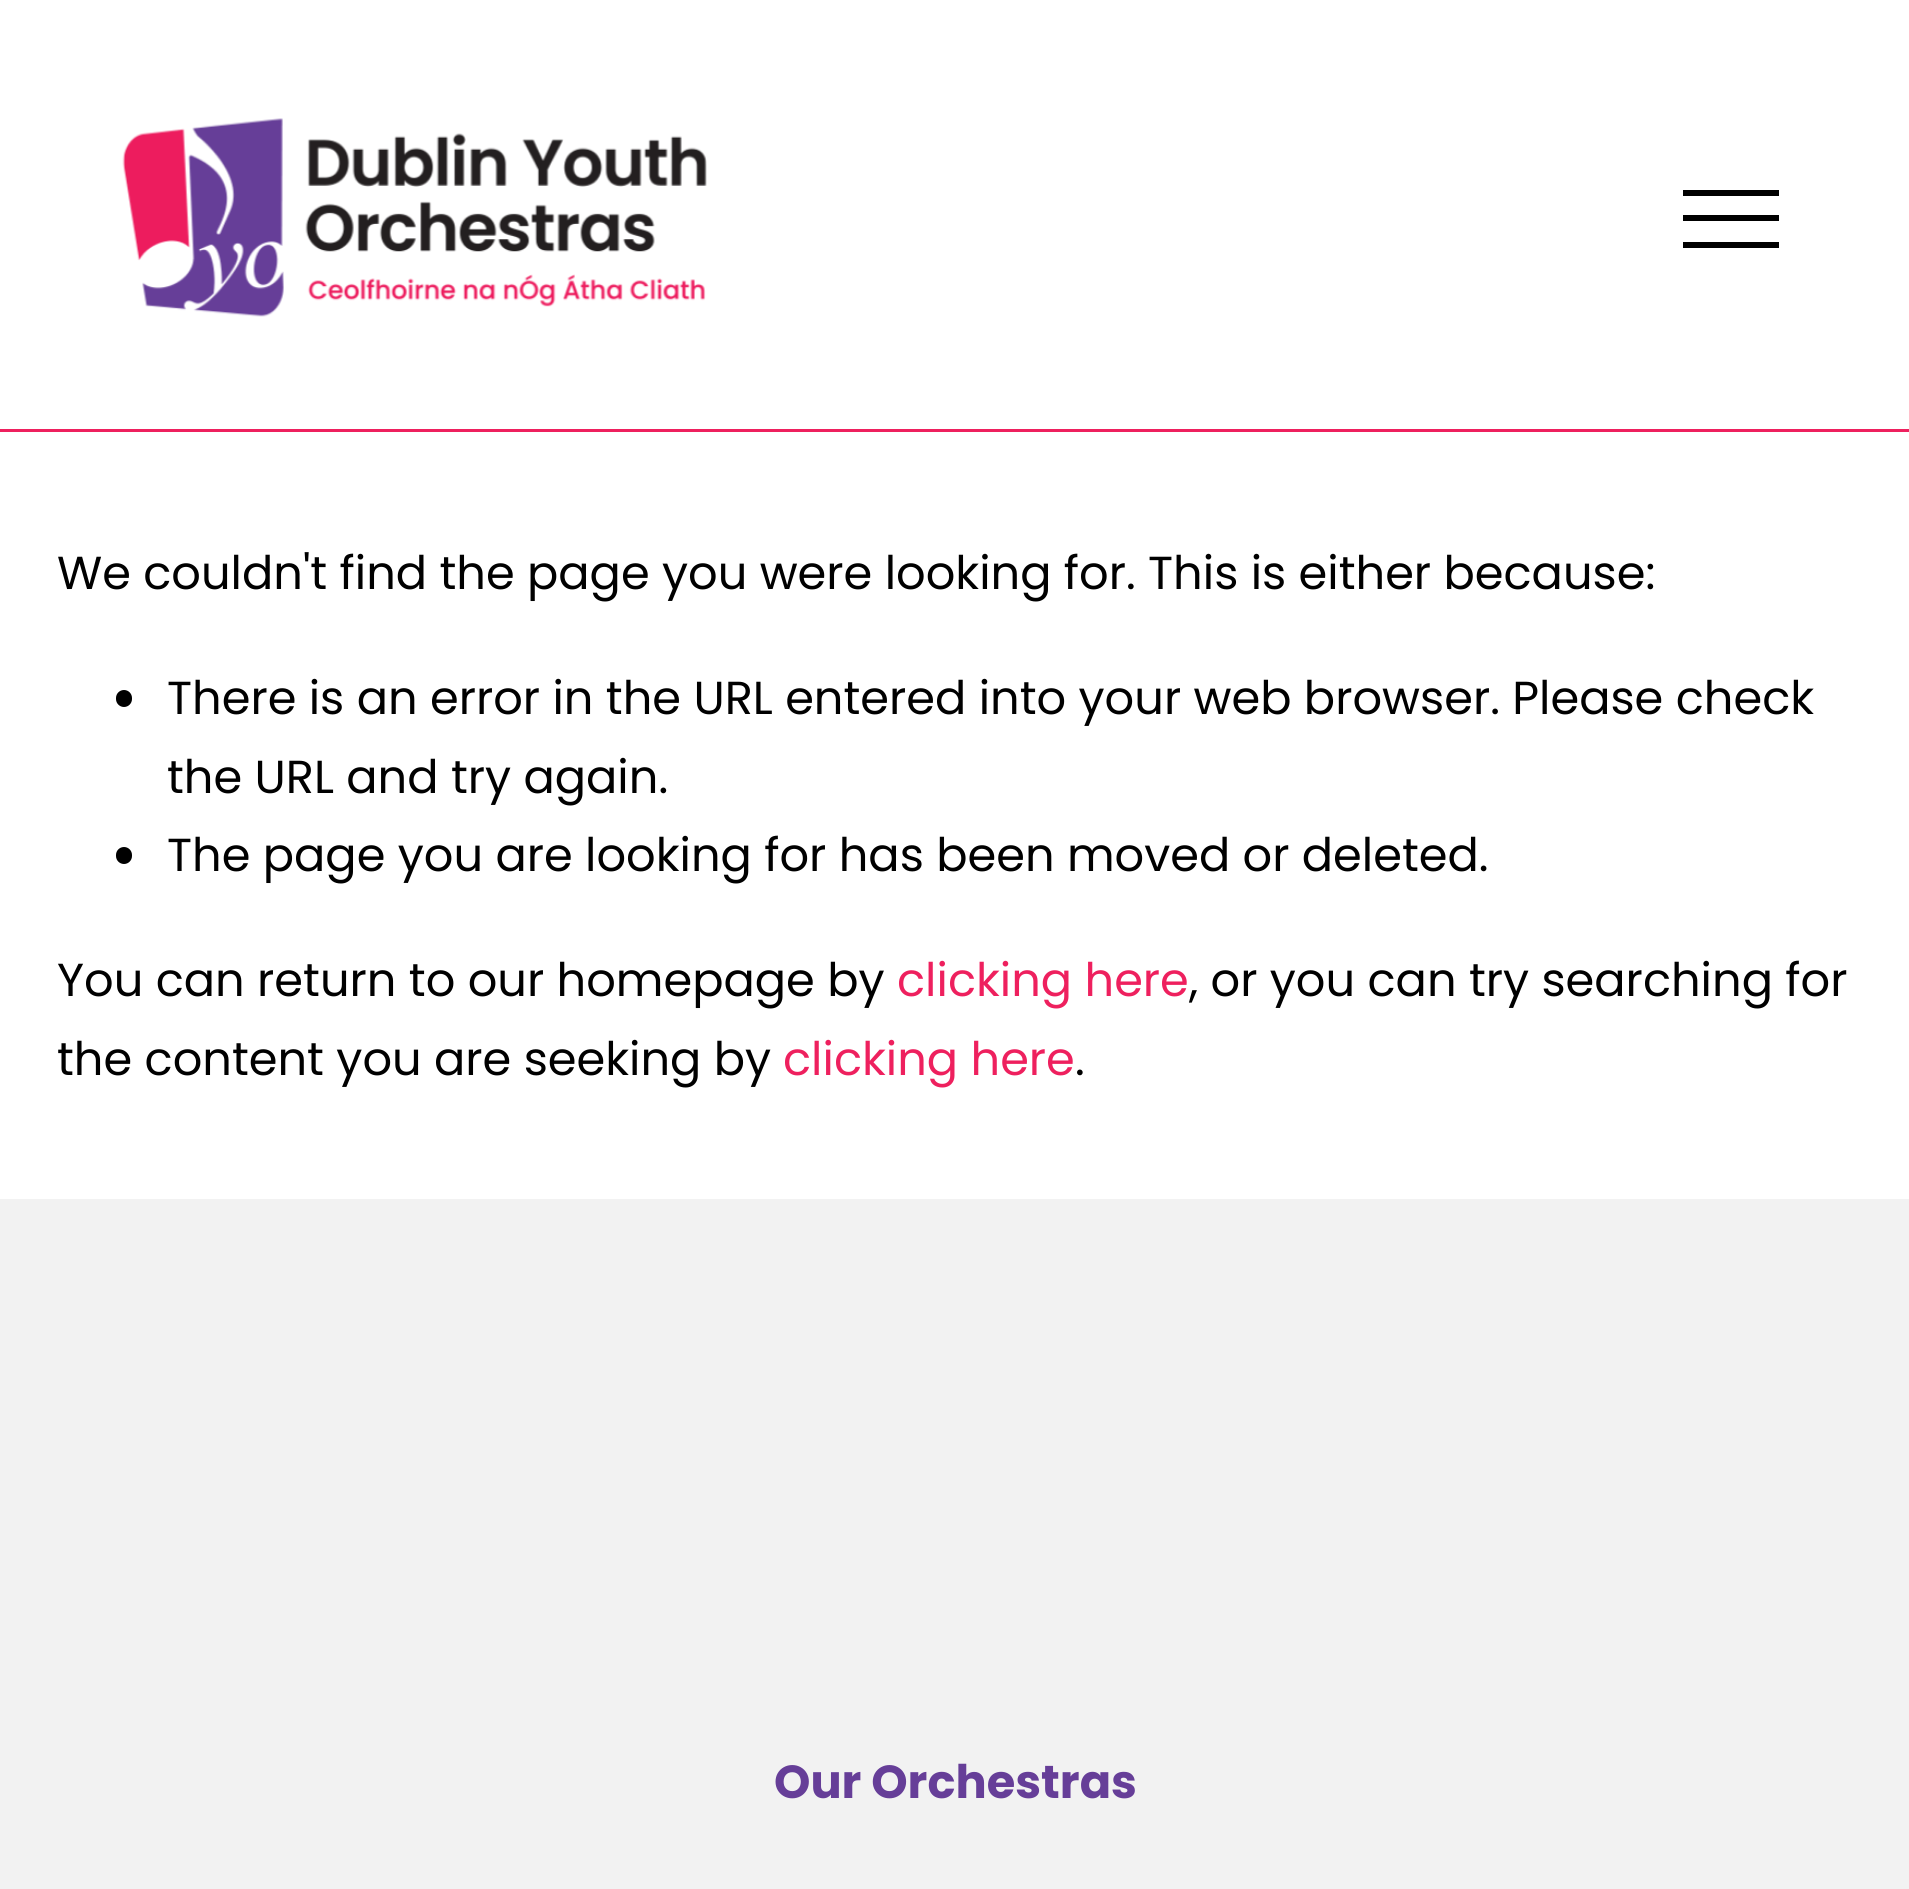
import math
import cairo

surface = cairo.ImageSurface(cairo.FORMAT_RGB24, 1909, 1889)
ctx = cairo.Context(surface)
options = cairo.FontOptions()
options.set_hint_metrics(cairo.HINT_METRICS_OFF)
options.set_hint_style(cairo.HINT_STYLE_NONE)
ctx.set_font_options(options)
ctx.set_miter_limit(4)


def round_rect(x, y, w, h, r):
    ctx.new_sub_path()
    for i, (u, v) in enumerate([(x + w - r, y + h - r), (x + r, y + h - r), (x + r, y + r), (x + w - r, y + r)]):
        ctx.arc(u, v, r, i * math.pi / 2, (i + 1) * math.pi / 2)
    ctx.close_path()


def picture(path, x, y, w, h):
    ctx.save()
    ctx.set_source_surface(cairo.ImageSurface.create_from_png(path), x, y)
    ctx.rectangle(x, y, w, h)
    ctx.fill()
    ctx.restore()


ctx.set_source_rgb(1, 1, 1)
ctx.paint()
picture("img1.png", 122, 118, 585, 199)
ctx.set_source_rgb(0, 0, 0)
ctx.rectangle(1683, 190, 96, 6)
ctx.fill()
ctx.rectangle(1683, 215, 96, 6)
ctx.fill()
ctx.rectangle(1683, 242, 96, 6)
ctx.fill()
ctx.set_source_rgb(0.933, 0.125, 0.369)
ctx.rectangle(0, 429, 1909, 3)
ctx.fill()
ctx.select_font_face("Poppins")
ctx.set_font_size(46.3)
ctx.set_source_rgb(0, 0, 0)
ctx.move_to(57, 589)
ctx.show_text("We couldn't find the page you were looking for. This is either because:")
round_rect(116, 690, 16, 17, 8)
ctx.fill()
ctx.move_to(167, 714)
ctx.show_text("There is an error in the URL entered into your web browser. Please check")
ctx.move_to(167, 793)
ctx.show_text("the URL and try again.")
round_rect(116, 847, 16, 17, 8)
ctx.fill()
ctx.move_to(167, 871)
ctx.show_text("The page you are looking for has been moved or deleted.")
ctx.move_to(57, 996)
ctx.show_text("You can return to our homepage by")
ctx.set_source_rgb(0.933, 0.125, 0.369)
ctx.move_to(897, 996)
ctx.show_text("clicking here")
ctx.set_source_rgb(0, 0, 0)
ctx.move_to(1189, 996)
ctx.show_text(", or you can try searching for")
ctx.move_to(57, 1075)
ctx.show_text("the content you are seeking by")
ctx.set_source_rgb(0.933, 0.125, 0.369)
ctx.move_to(783, 1075)
ctx.show_text("clicking here")
ctx.set_source_rgb(0, 0, 0)
ctx.move_to(1075, 1075)
ctx.show_text(".")
ctx.set_source_rgb(0.949, 0.949, 0.949)
ctx.rectangle(0, 1199, 1909, 690)
ctx.fill()
ctx.select_font_face("Poppins", cairo.FONT_SLANT_NORMAL, cairo.FONT_WEIGHT_BOLD)
ctx.set_source_rgb(0.4, 0.243, 0.596)
ctx.move_to(774, 1798)
ctx.show_text("Our Orchestras")
surface.write_to_png("page.png")
